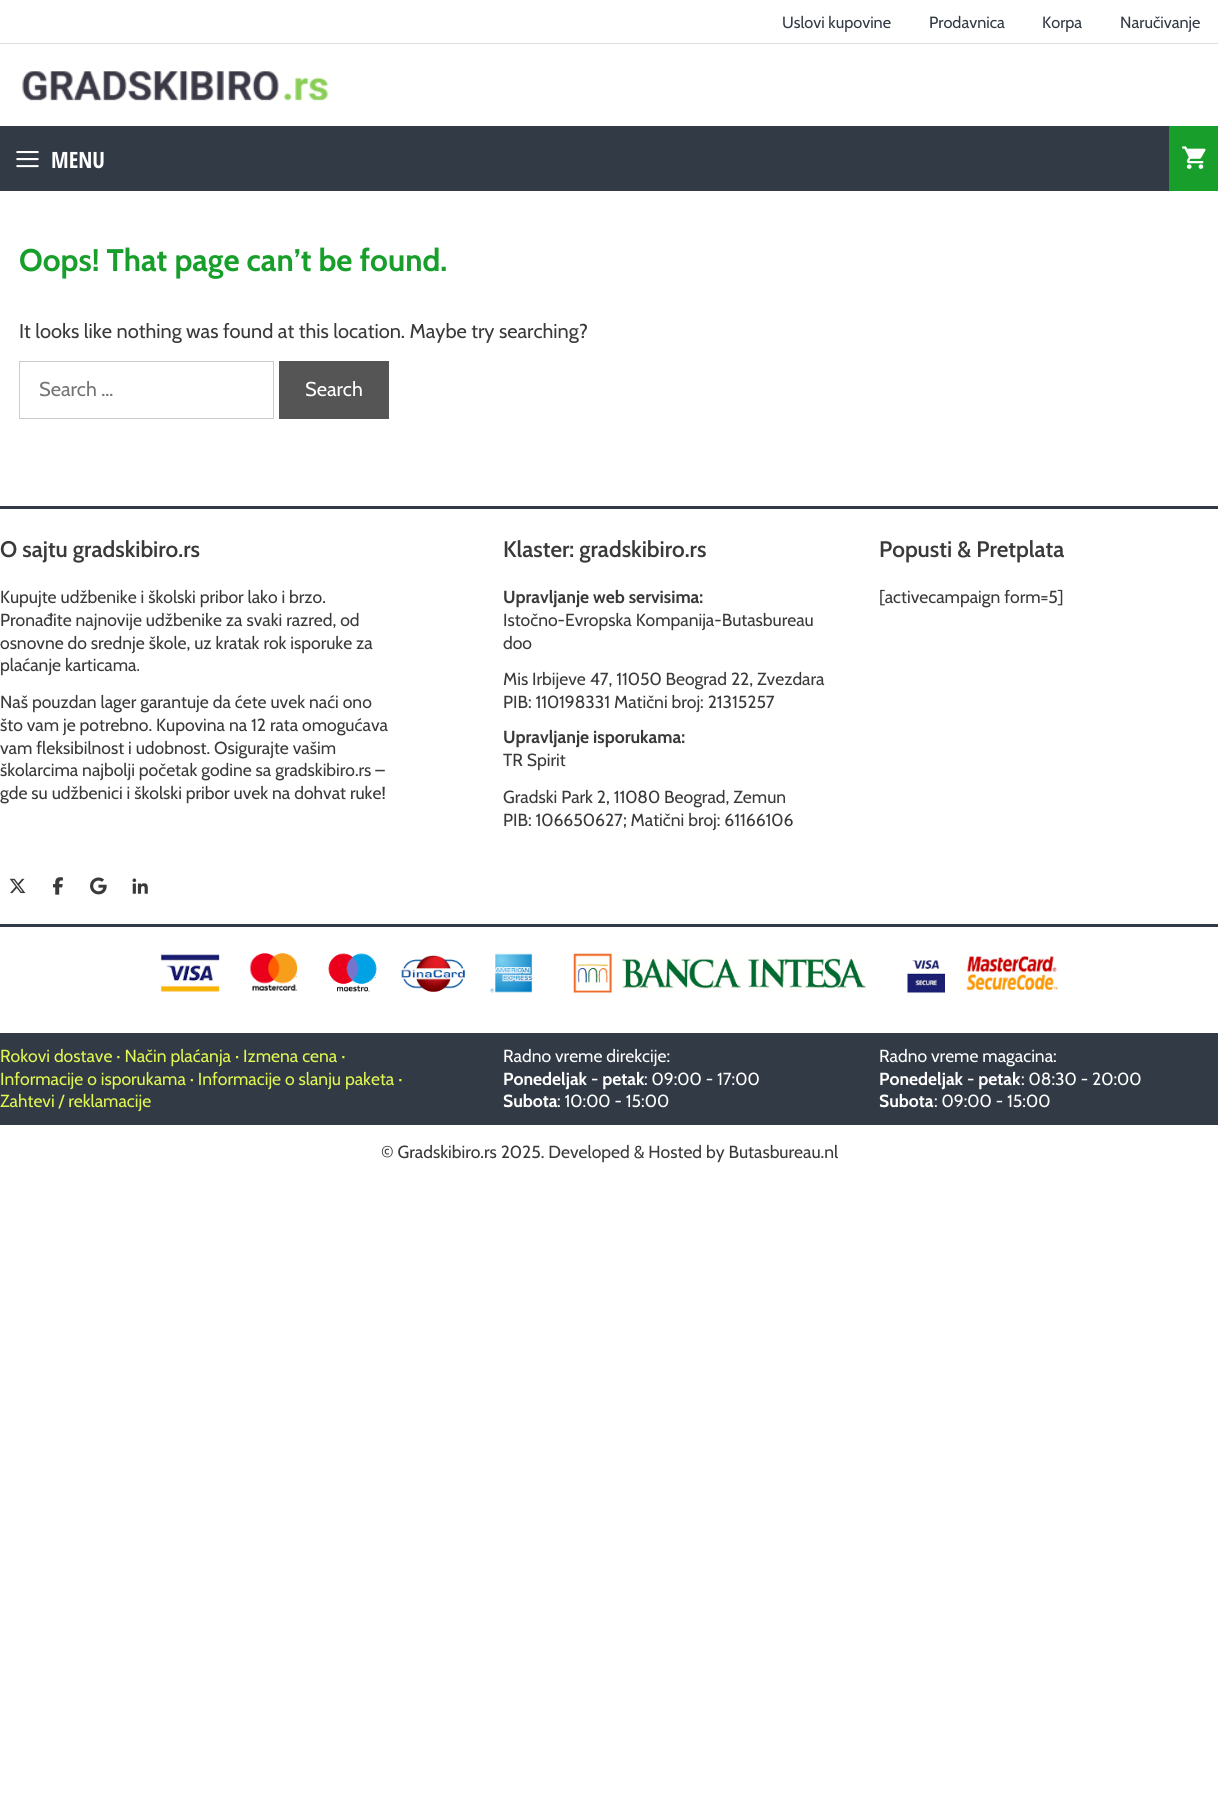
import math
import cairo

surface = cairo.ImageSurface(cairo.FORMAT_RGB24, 1218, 1811)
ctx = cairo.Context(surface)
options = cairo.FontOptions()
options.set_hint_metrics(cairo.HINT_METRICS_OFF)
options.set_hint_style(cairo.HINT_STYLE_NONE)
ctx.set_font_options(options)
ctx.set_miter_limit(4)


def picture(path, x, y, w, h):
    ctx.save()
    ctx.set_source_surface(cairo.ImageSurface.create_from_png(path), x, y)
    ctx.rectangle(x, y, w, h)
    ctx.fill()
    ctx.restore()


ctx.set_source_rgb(1, 1, 1)
ctx.paint()
ctx.set_source_rgb(0.867, 0.867, 0.867)
ctx.rectangle(0, 43, 1218, 1)
ctx.fill()
ctx.select_font_face("Cabin")
ctx.set_font_size(16.25)
ctx.set_source_rgb(0.196, 0.227, 0.271)
ctx.move_to(782, 28)
ctx.show_text("Uslovi kupovine")
ctx.move_to(929, 28)
ctx.show_text("Prodavnica")
ctx.move_to(1042, 28)
ctx.show_text("Korpa")
ctx.move_to(1120, 28)
ctx.show_text("Naručivanje")
picture("img1.png", 22, 71, 306, 30)
ctx.rectangle(0, 126, 1169, 65)
ctx.fill()
picture("img2.png", 16, 151, 23, 17)
ctx.select_font_face("Open Sans Condensed", cairo.FONT_SLANT_NORMAL, cairo.FONT_WEIGHT_BOLD)
ctx.set_font_size(22.5)
ctx.set_source_rgb(1, 1, 1)
ctx.move_to(51, 168)
ctx.show_text("MENU")
ctx.set_source_rgb(0.094, 0.624, 0.169)
ctx.rectangle(1169, 126, 49, 65)
ctx.fill()
picture("img3.png", 1182, 146, 24, 23)
ctx.select_font_face("Cabin", cairo.FONT_SLANT_NORMAL, cairo.FONT_WEIGHT_BOLD)
ctx.set_font_size(31.25)
ctx.move_to(19, 271)
ctx.show_text("Oops! That page can’t be found.")
ctx.select_font_face("Cabin")
ctx.set_font_size(20)
ctx.set_source_rgb(0.227, 0.227, 0.227)
ctx.move_to(19, 338)
ctx.show_text("It looks like nothing was found at this location. Maybe try searching?")
ctx.rectangle(19.5, 361.5, 254, 57)
ctx.set_source_rgb(0.8, 0.8, 0.8)
ctx.set_line_width(1)
ctx.stroke()
ctx.set_source_rgb(0.459, 0.459, 0.459)
ctx.move_to(39, 396)
ctx.show_text("Search …")
ctx.set_source_rgb(0.333, 0.333, 0.333)
ctx.rectangle(279, 361, 110, 58)
ctx.fill()
ctx.set_source_rgb(1, 1, 1)
ctx.move_to(305, 396)
ctx.show_text("Search")
ctx.set_source_rgb(0.196, 0.227, 0.271)
ctx.rectangle(0, 506, 1218, 3)
ctx.fill()
ctx.select_font_face("Cabin SemiBold")
ctx.set_font_size(22.5)
ctx.set_source_rgb(0.227, 0.227, 0.227)
ctx.move_to(0, 557)
ctx.show_text("O sajtu gradskibiro.rs")
ctx.select_font_face("Cabin")
ctx.set_font_size(17.5)
ctx.move_to(0, 603)
ctx.show_text("Kupujte udžbenike i školski pribor lako i brzo.")
ctx.move_to(0, 626)
ctx.show_text("Pronađite najnovije udžbenike za svaki razred, od")
ctx.move_to(0, 649)
ctx.show_text("osnovne do srednje škole, uz kratak rok isporuke za")
ctx.move_to(0, 671)
ctx.show_text("plaćanje karticama.")
ctx.move_to(0, 708)
ctx.show_text("Naš pouzdan lager garantuje da ćete uvek naći ono")
ctx.move_to(0, 731)
ctx.show_text("što vam je potrebno. Kupovina na 12 rata omogućava")
ctx.move_to(0, 754)
ctx.show_text("vam fleksibilnost i udobnost. Osigurajte vašim")
ctx.move_to(0, 776)
ctx.show_text("školarcima najbolji početak godine sa gradskibiro.rs –")
ctx.move_to(0, 799)
ctx.show_text("gde su udžbenici i školski pribor uvek na dohvat ruke!")
picture("img4.png", 9, 878, 17, 16)
picture("img5.png", 52, 877, 11, 18)
picture("img6.png", 90, 877, 17, 18)
picture("img7.png", 132, 878, 16, 16)
ctx.select_font_face("Cabin SemiBold")
ctx.set_font_size(22.5)
ctx.move_to(503, 557)
ctx.show_text("Klaster: gradskibiro.rs")
ctx.select_font_face("Cabin", cairo.FONT_SLANT_NORMAL, cairo.FONT_WEIGHT_BOLD)
ctx.set_font_size(17.5)
ctx.move_to(503, 603)
ctx.show_text("Upravljanje web servisima:")
ctx.select_font_face("Cabin")
ctx.move_to(503, 626)
ctx.show_text("Istočno-Evropska Kompanija-Butasbureau")
ctx.move_to(503, 649)
ctx.show_text("doo")
ctx.move_to(503, 685)
ctx.show_text("Mis Irbijeve 47, 11050 Beograd 22, Zvezdara")
ctx.move_to(503, 708)
ctx.show_text("PIB: 110198331 Matični broj: 21315257")
ctx.select_font_face("Cabin", cairo.FONT_SLANT_NORMAL, cairo.FONT_WEIGHT_BOLD)
ctx.move_to(503, 743)
ctx.show_text("Upravljanje isporukama:")
ctx.select_font_face("Cabin")
ctx.move_to(503, 766)
ctx.show_text("TR Spirit")
ctx.move_to(503, 803)
ctx.show_text("Gradski Park 2, 11080 Beograd, Zemun")
ctx.move_to(503, 826)
ctx.show_text("PIB: 106650627; Matični broj: 61166106")
ctx.select_font_face("Cabin SemiBold")
ctx.set_font_size(22.5)
ctx.move_to(879, 557)
ctx.show_text("Popusti & Pretplata")
ctx.select_font_face("Cabin")
ctx.set_font_size(17.5)
ctx.move_to(879, 603)
ctx.show_text("[activecampaign form=5]")
ctx.set_source_rgb(0.196, 0.227, 0.271)
ctx.rectangle(0, 924, 1218, 3)
ctx.fill()
picture("img8.png", 160, 954, 60, 38)
picture("img9.png", 249, 953, 49, 38)
picture("img10.png", 328, 953, 49, 39)
picture("img11.png", 401, 955, 64, 37)
picture("img12.png", 490, 953, 43, 40)
picture("img13.png", 573, 953, 293, 40)
picture("img14.png", 907, 960, 38, 33)
picture("img15.png", 966, 956, 92, 34)
ctx.rectangle(0, 1033, 1218, 92)
ctx.fill()
ctx.set_source_rgb(0.878, 0.961, 0.322)
ctx.move_to(0, 1062)
ctx.show_text("Rokovi dostave · Način plaćanja · Izmena cena ·")
ctx.move_to(0, 1085)
ctx.show_text("Informacije o isporukama · Informacije o slanju paketa ·")
ctx.move_to(0, 1107)
ctx.show_text("Zahtevi / reklamacije")
ctx.set_source_rgb(1, 1, 1)
ctx.move_to(503, 1062)
ctx.show_text("Radno vreme direkcije:")
ctx.select_font_face("Cabin", cairo.FONT_SLANT_NORMAL, cairo.FONT_WEIGHT_BOLD)
ctx.move_to(503, 1085)
ctx.show_text("Ponedeljak - petak")
ctx.select_font_face("Cabin")
ctx.move_to(644, 1085)
ctx.show_text(": 09:00 - 17:00")
ctx.select_font_face("Cabin", cairo.FONT_SLANT_NORMAL, cairo.FONT_WEIGHT_BOLD)
ctx.move_to(503, 1107)
ctx.show_text("Subota")
ctx.select_font_face("Cabin")
ctx.move_to(557, 1107)
ctx.show_text(": 10:00 - 15:00")
ctx.move_to(879, 1062)
ctx.show_text("Radno vreme magacina:")
ctx.select_font_face("Cabin", cairo.FONT_SLANT_NORMAL, cairo.FONT_WEIGHT_BOLD)
ctx.move_to(879, 1085)
ctx.show_text("Ponedeljak - petak")
ctx.select_font_face("Cabin")
ctx.move_to(1021, 1085)
ctx.show_text(": 08:30 - 20:00")
ctx.select_font_face("Cabin", cairo.FONT_SLANT_NORMAL, cairo.FONT_WEIGHT_BOLD)
ctx.move_to(879, 1107)
ctx.show_text("Subota")
ctx.select_font_face("Cabin")
ctx.move_to(934, 1107)
ctx.show_text(": 09:00 - 15:00")
ctx.set_source_rgb(0.227, 0.227, 0.227)
ctx.move_to(381, 1158)
ctx.show_text("© Gradskibiro.rs 2025. Developed & Hosted by Butasbureau.nl")
surface.write_to_png("page.png")
